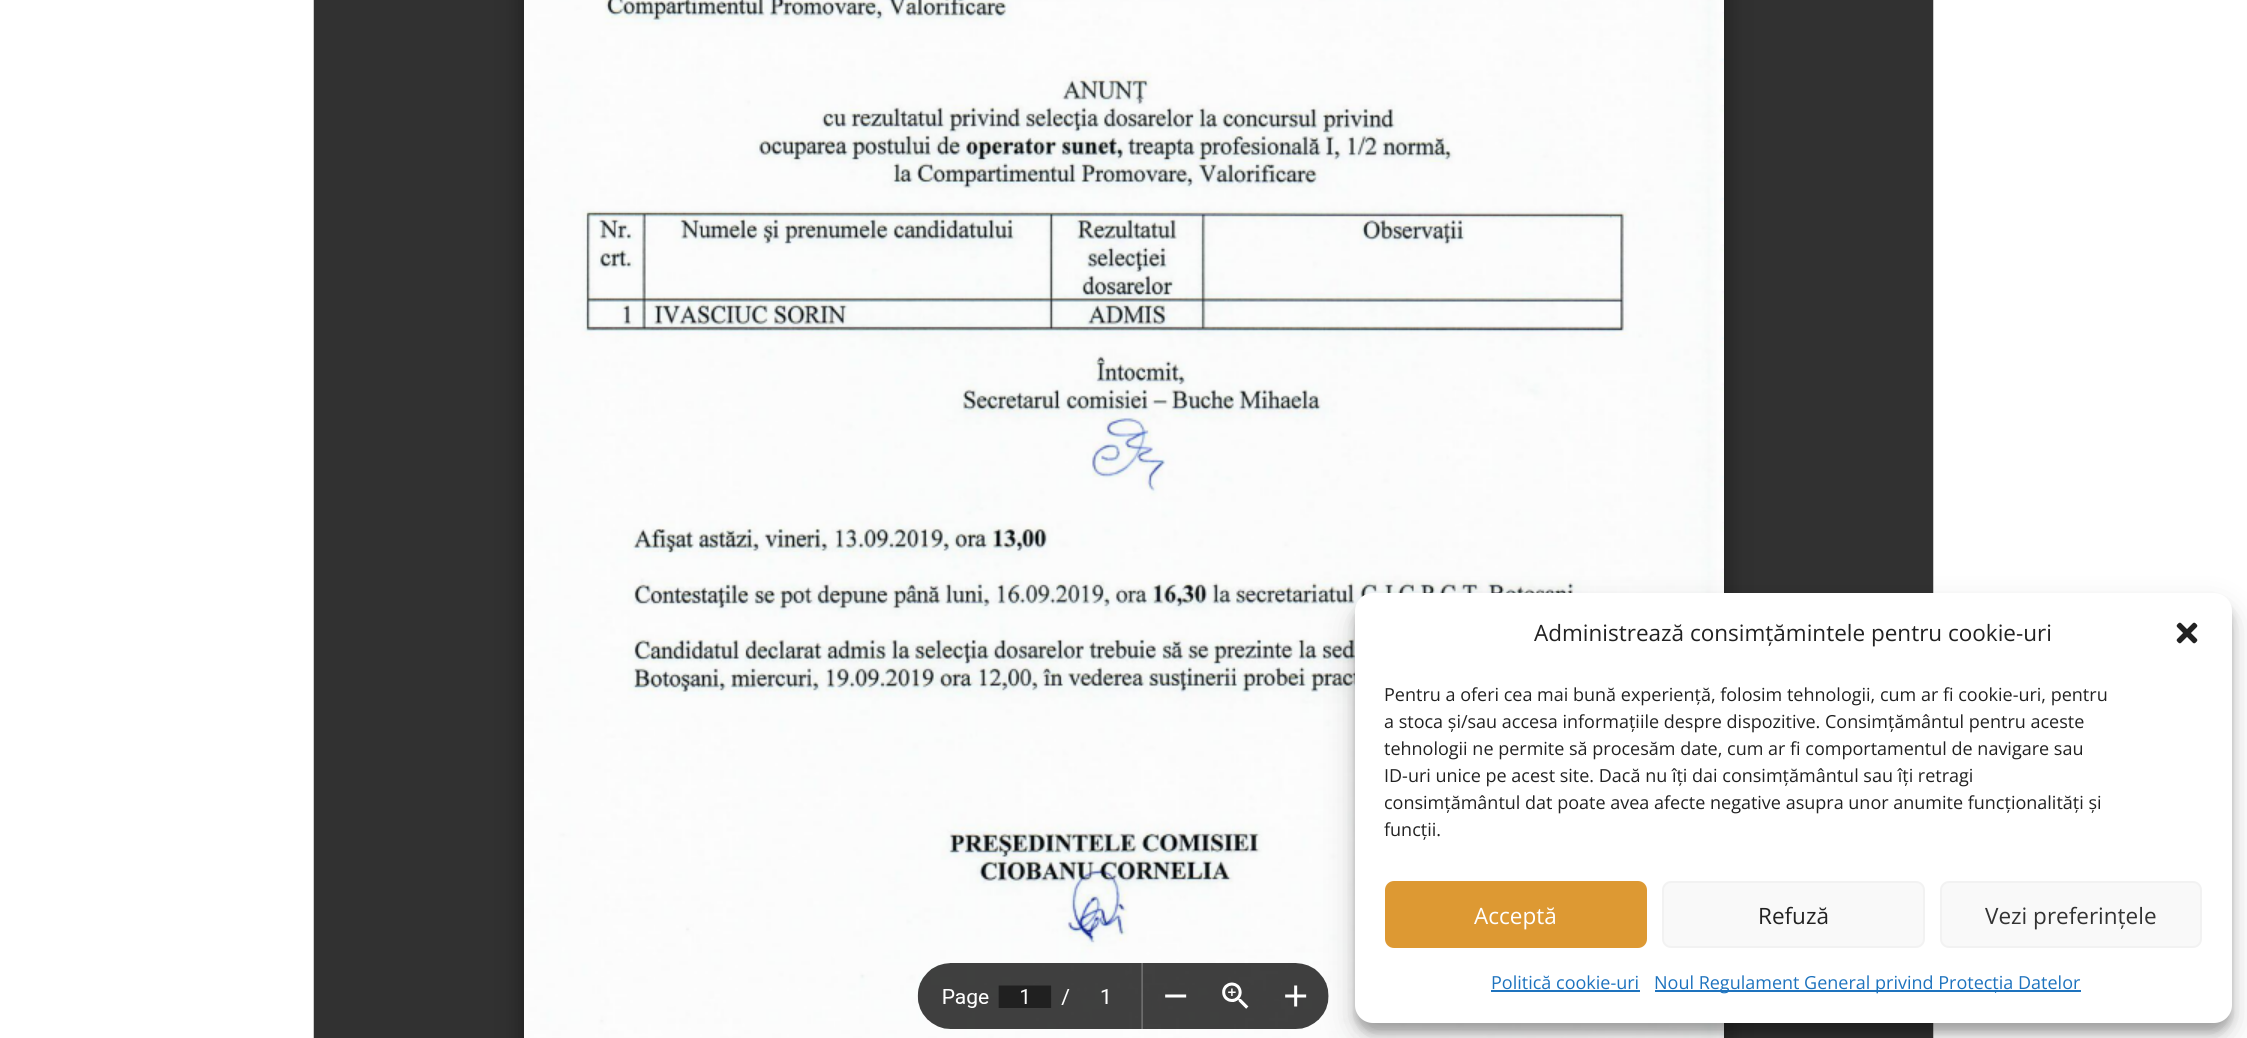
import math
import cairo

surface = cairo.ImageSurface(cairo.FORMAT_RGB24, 2247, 1038)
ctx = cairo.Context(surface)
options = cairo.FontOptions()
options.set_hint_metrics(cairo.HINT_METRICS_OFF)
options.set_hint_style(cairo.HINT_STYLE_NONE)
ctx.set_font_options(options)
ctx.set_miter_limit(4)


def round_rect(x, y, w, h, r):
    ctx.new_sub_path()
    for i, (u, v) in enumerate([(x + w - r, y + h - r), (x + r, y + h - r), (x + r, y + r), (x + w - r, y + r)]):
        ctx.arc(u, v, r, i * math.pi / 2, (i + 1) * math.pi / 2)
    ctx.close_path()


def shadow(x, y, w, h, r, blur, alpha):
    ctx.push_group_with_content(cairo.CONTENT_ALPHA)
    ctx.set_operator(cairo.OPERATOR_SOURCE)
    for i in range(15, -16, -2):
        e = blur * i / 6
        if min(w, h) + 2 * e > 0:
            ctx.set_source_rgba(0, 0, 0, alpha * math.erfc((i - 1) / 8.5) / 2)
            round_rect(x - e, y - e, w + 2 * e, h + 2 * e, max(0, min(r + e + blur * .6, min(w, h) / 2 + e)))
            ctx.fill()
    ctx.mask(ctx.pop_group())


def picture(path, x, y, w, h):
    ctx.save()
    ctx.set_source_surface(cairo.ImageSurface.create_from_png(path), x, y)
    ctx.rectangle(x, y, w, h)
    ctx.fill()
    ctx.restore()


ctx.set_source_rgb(1, 1, 1)
ctx.paint()
picture("img1.png", 313, 0, 1621, 1038)
ctx.set_source_rgb(0, 0, 0)
shadow(1355, 602, 877, 430, 18, 4.5, 0.23)
shadow(1355, 608, 877, 430, 18, 15, 0.19)
ctx.set_source_rgb(1, 1, 1)
round_rect(1355, 593, 877, 430, 18)
ctx.fill()
ctx.select_font_face("Open Sans")
ctx.set_font_size(22.5)
ctx.set_source_rgb(0.133, 0.133, 0.133)
ctx.move_to(1534, 641)
ctx.show_text("Administrează consimțămintele pentru cookie-uri")
picture("img2.png", 2176, 622, 22, 22)
ctx.set_font_size(18)
ctx.move_to(1384, 701)
ctx.show_text("Pentru a oferi cea mai bună experiență, folosim tehnologii, cum ar fi cookie-uri, pentru")
ctx.move_to(1384, 728)
ctx.show_text("a stoca și/sau accesa informațiile despre dispozitive. Consimțământul pentru aceste")
ctx.move_to(1384, 755)
ctx.show_text("tehnologii ne permite să procesăm date, cum ar fi comportamentul de navigare sau")
ctx.move_to(1384, 782)
ctx.show_text("ID-uri unice pe acest site. Dacă nu îți dai consimțământul sau îți retragi")
ctx.move_to(1384, 809)
ctx.show_text("consimțământul dat poate avea afecte negative asupra unor anumite funcționalități și")
ctx.move_to(1384, 836)
ctx.show_text("funcții.")
ctx.set_source_rgb(0.867, 0.6, 0.2)
round_rect(1386, 882, 260, 65, 8)
ctx.fill_preserve()
ctx.stroke()
ctx.set_font_size(22.5)
ctx.set_source_rgb(1, 1, 1)
ctx.move_to(1474, 924)
ctx.show_text("Acceptă")
ctx.set_source_rgb(0.976, 0.976, 0.976)
round_rect(1663, 882, 261, 65, 8)
ctx.fill_preserve()
ctx.set_source_rgb(0.949, 0.949, 0.949)
ctx.stroke()
ctx.set_source_rgb(0.133, 0.133, 0.133)
ctx.move_to(1758, 924)
ctx.show_text("Refuză")
ctx.set_source_rgb(0.976, 0.976, 0.976)
round_rect(1941, 882, 260, 65, 8)
ctx.fill_preserve()
ctx.set_source_rgb(0.949, 0.949, 0.949)
ctx.stroke()
ctx.set_source_rgb(0.2, 0.2, 0.2)
ctx.move_to(1985, 924)
ctx.show_text("Vezi preferințele")
ctx.set_font_size(18)
ctx.set_source_rgb(0.118, 0.451, 0.745)
ctx.move_to(1491, 989)
ctx.show_text("Politică cookie-uri")
ctx.rectangle(1491, 990, 149, 2)
ctx.fill()
ctx.rectangle(1655, 990, 426, 2)
ctx.fill()
ctx.move_to(1654, 989)
ctx.show_text("Noul Regulament General privind Protecția Datelor")
surface.write_to_png("page.png")
